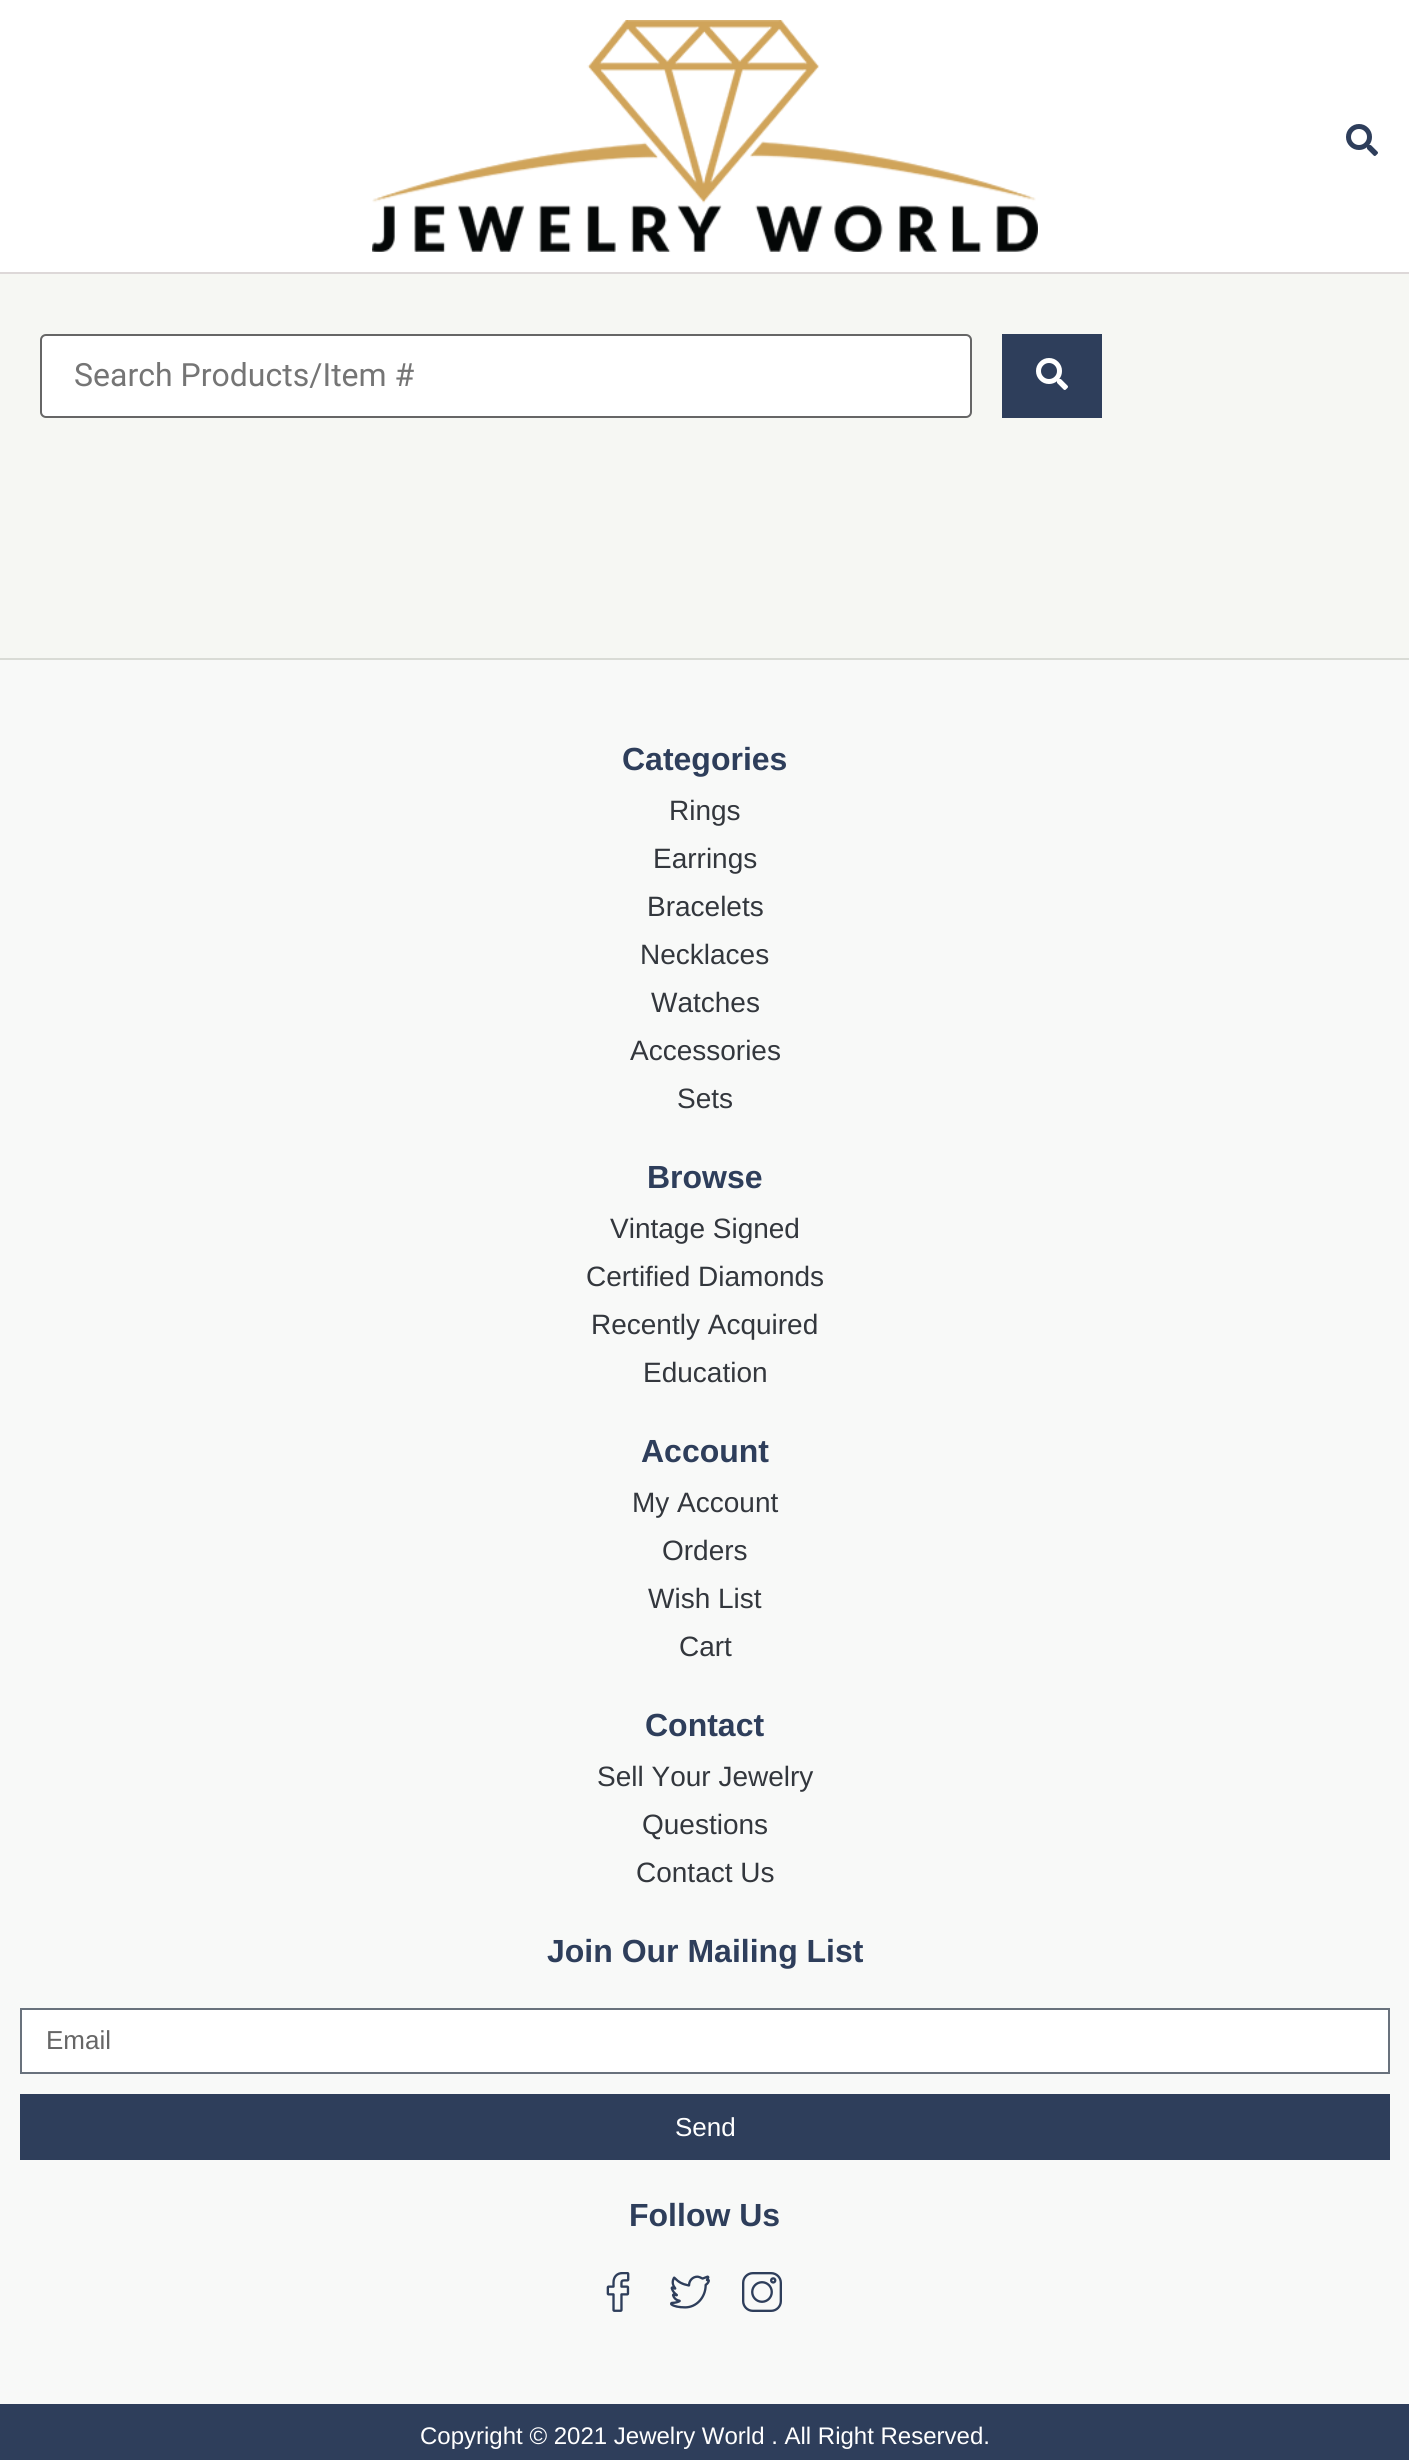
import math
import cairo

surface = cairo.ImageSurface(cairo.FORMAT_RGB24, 1409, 2460)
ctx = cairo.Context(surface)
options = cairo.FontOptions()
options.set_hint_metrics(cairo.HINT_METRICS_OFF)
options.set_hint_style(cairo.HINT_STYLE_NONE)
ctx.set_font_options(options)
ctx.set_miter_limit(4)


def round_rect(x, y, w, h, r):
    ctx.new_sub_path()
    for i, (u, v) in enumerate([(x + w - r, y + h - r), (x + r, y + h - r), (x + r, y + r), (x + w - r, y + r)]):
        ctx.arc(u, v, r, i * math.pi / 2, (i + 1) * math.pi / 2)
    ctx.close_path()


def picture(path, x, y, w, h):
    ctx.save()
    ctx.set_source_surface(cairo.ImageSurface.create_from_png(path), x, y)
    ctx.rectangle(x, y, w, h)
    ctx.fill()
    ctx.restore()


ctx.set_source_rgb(0.961, 0.965, 0.953)
ctx.paint()
ctx.set_source_rgb(1, 1, 1)
ctx.rectangle(0, 0, 1409, 272)
ctx.fill()
ctx.set_source_rgb(0.867, 0.847, 0.847)
ctx.rectangle(0, 272, 1409, 2)
ctx.fill()
picture("img1.png", 372, 20, 666, 232)
picture("img2.png", 1346, 124, 32, 32)
ctx.set_source_rgb(1, 1, 1)
round_rect(41, 335, 930, 82, 5)
ctx.fill_preserve()
ctx.set_source_rgb(0.4, 0.4, 0.4)
ctx.stroke()
ctx.select_font_face("Roboto")
ctx.set_font_size(32)
ctx.set_source_rgb(0.459, 0.459, 0.459)
ctx.move_to(74, 386)
ctx.show_text("Search Products/Item #")
ctx.set_source_rgb(0.18, 0.243, 0.357)
ctx.rectangle(1002, 334, 100, 84)
ctx.fill()
picture("img3.png", 1036, 358, 32, 32)
ctx.set_source_rgb(0.969, 0.973, 0.969)
ctx.rectangle(0, 660, 1409, 1744)
ctx.fill()
ctx.set_source_rgb(0.851, 0.859, 0.835)
ctx.rectangle(0, 658, 1409, 2)
ctx.fill()
ctx.select_font_face("Liberation Sans", cairo.FONT_SLANT_NORMAL, cairo.FONT_WEIGHT_BOLD)
ctx.set_source_rgb(0.18, 0.243, 0.357)
ctx.move_to(622, 770)
ctx.show_text("Categories")
ctx.select_font_face("Liberation Sans")
ctx.set_font_size(28)
ctx.set_source_rgb(0.2, 0.216, 0.239)
ctx.move_to(669, 820)
ctx.show_text("Rings")
ctx.move_to(653, 868)
ctx.show_text("Earrings")
ctx.move_to(647, 916)
ctx.show_text("Bracelets")
ctx.move_to(640, 964)
ctx.show_text("Necklaces")
ctx.move_to(651, 1012)
ctx.show_text("Watches")
ctx.move_to(630, 1060)
ctx.show_text("Accessories")
ctx.move_to(677, 1108)
ctx.show_text("Sets")
ctx.select_font_face("Liberation Sans", cairo.FONT_SLANT_NORMAL, cairo.FONT_WEIGHT_BOLD)
ctx.set_font_size(32)
ctx.set_source_rgb(0.18, 0.243, 0.357)
ctx.move_to(647, 1188)
ctx.show_text("Browse")
ctx.select_font_face("Liberation Sans")
ctx.set_font_size(28)
ctx.set_source_rgb(0.2, 0.216, 0.239)
ctx.move_to(610, 1238)
ctx.show_text("Vintage Signed")
ctx.move_to(586, 1286)
ctx.show_text("Certified Diamonds")
ctx.move_to(591, 1334)
ctx.show_text("Recently Acquired")
ctx.move_to(643, 1382)
ctx.show_text("Education")
ctx.select_font_face("Liberation Sans", cairo.FONT_SLANT_NORMAL, cairo.FONT_WEIGHT_BOLD)
ctx.set_font_size(32)
ctx.set_source_rgb(0.18, 0.243, 0.357)
ctx.move_to(641, 1462)
ctx.show_text("Account")
ctx.select_font_face("Liberation Sans")
ctx.set_font_size(28)
ctx.set_source_rgb(0.2, 0.216, 0.239)
ctx.move_to(632, 1512)
ctx.show_text("My Account")
ctx.move_to(662, 1560)
ctx.show_text("Orders")
ctx.move_to(648, 1608)
ctx.show_text("Wish List")
ctx.move_to(679, 1656)
ctx.show_text("Cart")
ctx.select_font_face("Liberation Sans", cairo.FONT_SLANT_NORMAL, cairo.FONT_WEIGHT_BOLD)
ctx.set_font_size(32)
ctx.set_source_rgb(0.18, 0.243, 0.357)
ctx.move_to(645, 1736)
ctx.show_text("Contact")
ctx.select_font_face("Liberation Sans")
ctx.set_font_size(28)
ctx.set_source_rgb(0.2, 0.216, 0.239)
ctx.move_to(597, 1786)
ctx.show_text("Sell Your Jewelry")
ctx.move_to(642, 1834)
ctx.show_text("Questions")
ctx.move_to(636, 1882)
ctx.show_text("Contact Us")
ctx.select_font_face("Liberation Sans", cairo.FONT_SLANT_NORMAL, cairo.FONT_WEIGHT_BOLD)
ctx.set_font_size(32)
ctx.set_source_rgb(0.18, 0.243, 0.357)
ctx.move_to(547, 1962)
ctx.show_text("Join Our Mailing List")
ctx.set_source_rgb(1, 1, 1)
ctx.rectangle(21, 2009, 1368, 64)
ctx.fill_preserve()
ctx.set_source_rgb(0.412, 0.447, 0.49)
ctx.stroke()
ctx.select_font_face("Liberation Sans")
ctx.set_font_size(26)
ctx.set_source_rgb(0.4, 0.4, 0.4)
ctx.move_to(46, 2049)
ctx.show_text("Email")
ctx.set_source_rgb(0.18, 0.243, 0.357)
ctx.rectangle(20, 2094, 1370, 66)
ctx.fill()
ctx.set_source_rgb(1, 1, 1)
ctx.move_to(675, 2136)
ctx.show_text("Send")
ctx.select_font_face("Liberation Sans", cairo.FONT_SLANT_NORMAL, cairo.FONT_WEIGHT_BOLD)
ctx.set_font_size(32)
ctx.set_source_rgb(0.18, 0.243, 0.357)
ctx.move_to(629, 2226)
ctx.show_text("Follow Us")
picture("img4.png", 606, 2272, 24, 40)
picture("img5.png", 670, 2275, 40, 34)
picture("img6.png", 742, 2272, 40, 40)
ctx.rectangle(0, 2404, 1409, 56)
ctx.fill()
ctx.select_font_face("Liberation Sans")
ctx.set_font_size(24)
ctx.set_source_rgb(1, 1, 1)
ctx.move_to(420, 2444)
ctx.show_text("Copyright © 2021 Jewelry World . All Right Reserved.")
surface.write_to_png("page.png")
